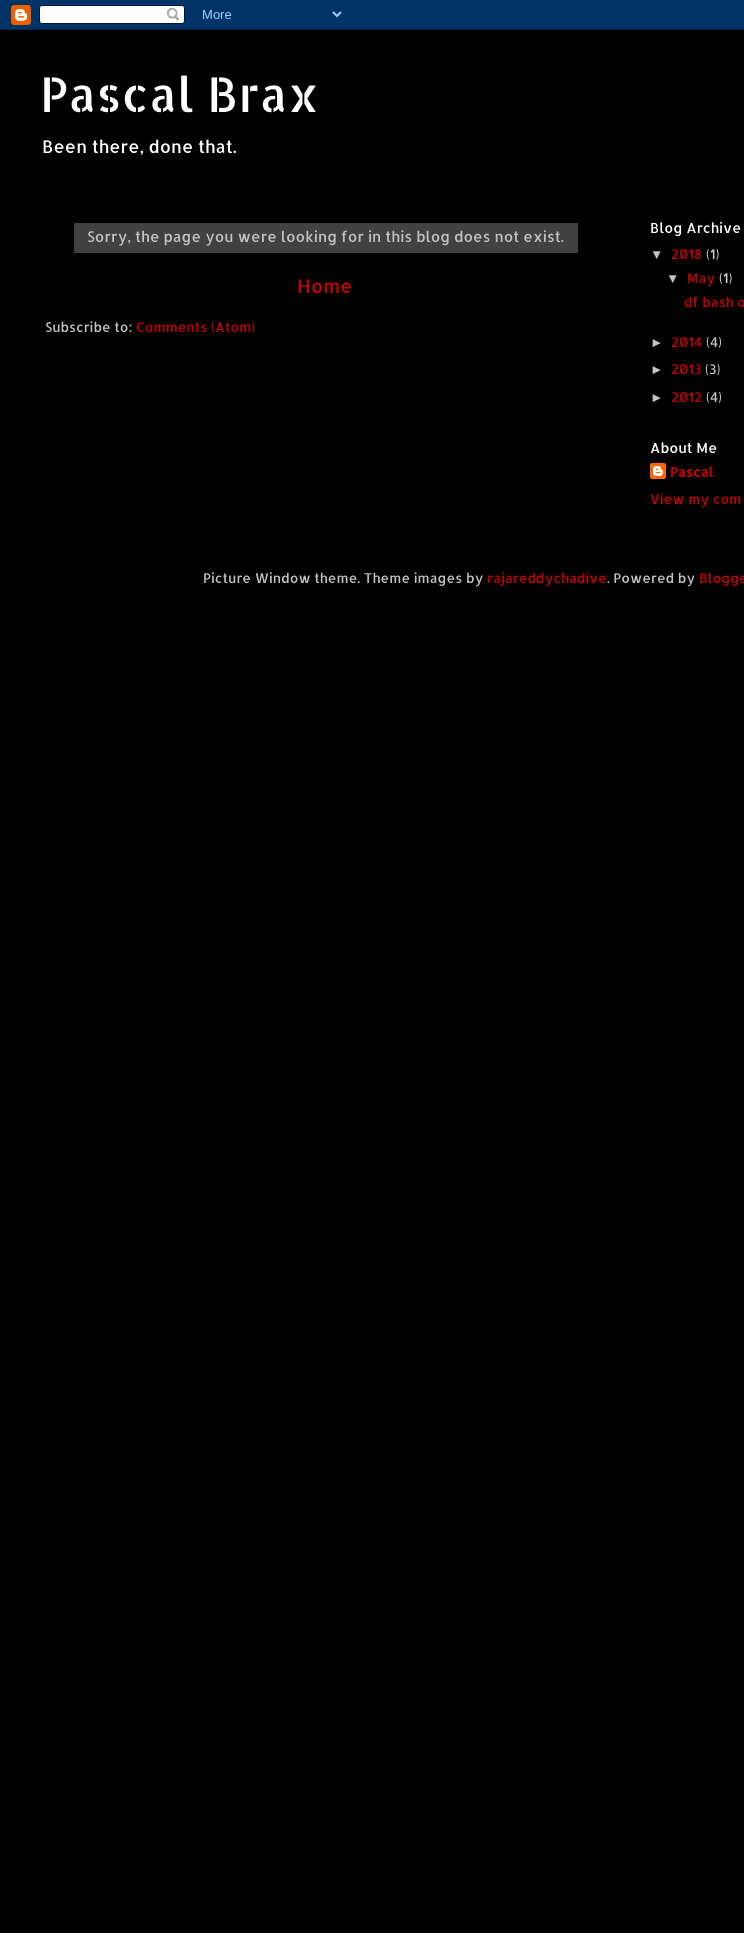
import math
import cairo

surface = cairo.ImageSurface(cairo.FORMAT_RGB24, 744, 1933)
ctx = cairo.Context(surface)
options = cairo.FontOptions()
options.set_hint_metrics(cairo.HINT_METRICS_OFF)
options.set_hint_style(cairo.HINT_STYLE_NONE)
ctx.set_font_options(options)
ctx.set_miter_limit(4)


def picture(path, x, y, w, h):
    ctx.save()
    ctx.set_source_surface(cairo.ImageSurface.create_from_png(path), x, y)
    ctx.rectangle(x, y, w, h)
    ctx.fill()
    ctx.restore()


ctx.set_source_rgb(0, 0, 0)
ctx.paint()
picture("img1.png", 0, 0, 744, 30)
ctx.select_font_face("Allerta Stencil")
ctx.set_font_size(48)
ctx.set_source_rgb(1, 1, 1)
ctx.move_to(40, 112)
ctx.show_text("Pascal Brax")
ctx.select_font_face("Allerta")
ctx.set_font_size(17.5)
ctx.move_to(42, 153)
ctx.show_text("Been there, done that.")
ctx.set_source_rgb(0.255, 0.255, 0.255)
ctx.rectangle(74, 223, 504, 30)
ctx.fill()
ctx.set_font_size(14.85)
ctx.set_source_rgb(0.765, 0.765, 0.765)
ctx.move_to(87, 242)
ctx.show_text("Sorry, the page you were looking for in this blog does not exist.")
ctx.set_font_size(19)
ctx.set_source_rgb(0.788, 0, 0)
ctx.move_to(297, 293)
ctx.show_text("Home")
ctx.set_font_size(13.5)
ctx.set_source_rgb(0.765, 0.765, 0.765)
ctx.move_to(45, 332)
ctx.show_text("Subscribe to:")
ctx.set_source_rgb(0.788, 0, 0)
ctx.move_to(136, 332)
ctx.show_text("Comments (Atom)")
ctx.set_font_size(14)
ctx.set_source_rgb(1, 1, 1)
ctx.move_to(650, 233)
ctx.show_text("Blog Archive")
ctx.select_font_face("Liberation Sans")
ctx.set_font_size(13.5)
ctx.set_source_rgb(0.765, 0.765, 0.765)
ctx.move_to(650, 259)
ctx.show_text("▼")
ctx.select_font_face("Allerta")
ctx.set_source_rgb(0.788, 0, 0)
ctx.move_to(671, 259)
ctx.show_text("2018")
ctx.set_source_rgb(0.765, 0.765, 0.765)
ctx.move_to(706, 259)
ctx.show_text("(1)")
ctx.select_font_face("Liberation Sans")
ctx.move_to(666, 283)
ctx.show_text("▼")
ctx.select_font_face("Allerta")
ctx.set_source_rgb(0.788, 0, 0)
ctx.move_to(687, 283)
ctx.show_text("May")
ctx.set_source_rgb(0.765, 0.765, 0.765)
ctx.move_to(719, 283)
ctx.show_text("(1)")
ctx.set_source_rgb(0.788, 0, 0)
ctx.move_to(684, 307)
ctx.show_text("df bash o")
ctx.select_font_face("Liberation Sans")
ctx.set_source_rgb(0.765, 0.765, 0.765)
ctx.move_to(650, 347)
ctx.show_text("►")
ctx.select_font_face("Allerta")
ctx.set_source_rgb(0.788, 0, 0)
ctx.move_to(671, 347)
ctx.show_text("2014")
ctx.set_source_rgb(0.765, 0.765, 0.765)
ctx.move_to(706, 347)
ctx.show_text("(4)")
ctx.select_font_face("Liberation Sans")
ctx.move_to(650, 374)
ctx.show_text("►")
ctx.select_font_face("Allerta")
ctx.set_source_rgb(0.788, 0, 0)
ctx.move_to(671, 374)
ctx.show_text("2013")
ctx.set_source_rgb(0.765, 0.765, 0.765)
ctx.move_to(705, 374)
ctx.show_text("(3)")
ctx.select_font_face("Liberation Sans")
ctx.move_to(650, 402)
ctx.show_text("►")
ctx.select_font_face("Allerta")
ctx.set_source_rgb(0.788, 0, 0)
ctx.move_to(671, 402)
ctx.show_text("2012")
ctx.set_source_rgb(0.765, 0.765, 0.765)
ctx.move_to(706, 402)
ctx.show_text("(4)")
ctx.set_font_size(14)
ctx.set_source_rgb(1, 1, 1)
ctx.move_to(650, 453)
ctx.show_text("About Me")
picture("img2.png", 650, 463, 16, 16)
ctx.select_font_face("Allerta", cairo.FONT_SLANT_NORMAL, cairo.FONT_WEIGHT_BOLD)
ctx.set_font_size(13.5)
ctx.set_source_rgb(0.788, 0, 0)
ctx.move_to(670, 477)
ctx.show_text("Pascal")
ctx.select_font_face("Allerta")
ctx.move_to(650, 504)
ctx.show_text("View my com")
ctx.set_source_rgb(0.765, 0.765, 0.765)
ctx.move_to(203, 583)
ctx.show_text("Picture Window theme. Theme images by")
ctx.set_source_rgb(0.788, 0, 0)
ctx.move_to(487, 583)
ctx.show_text("rajareddychadive")
ctx.set_source_rgb(0.765, 0.765, 0.765)
ctx.move_to(607, 583)
ctx.show_text(". Powered by")
ctx.set_source_rgb(0.788, 0, 0)
ctx.move_to(699, 583)
ctx.show_text("Blogge")
surface.write_to_png("page.png")
